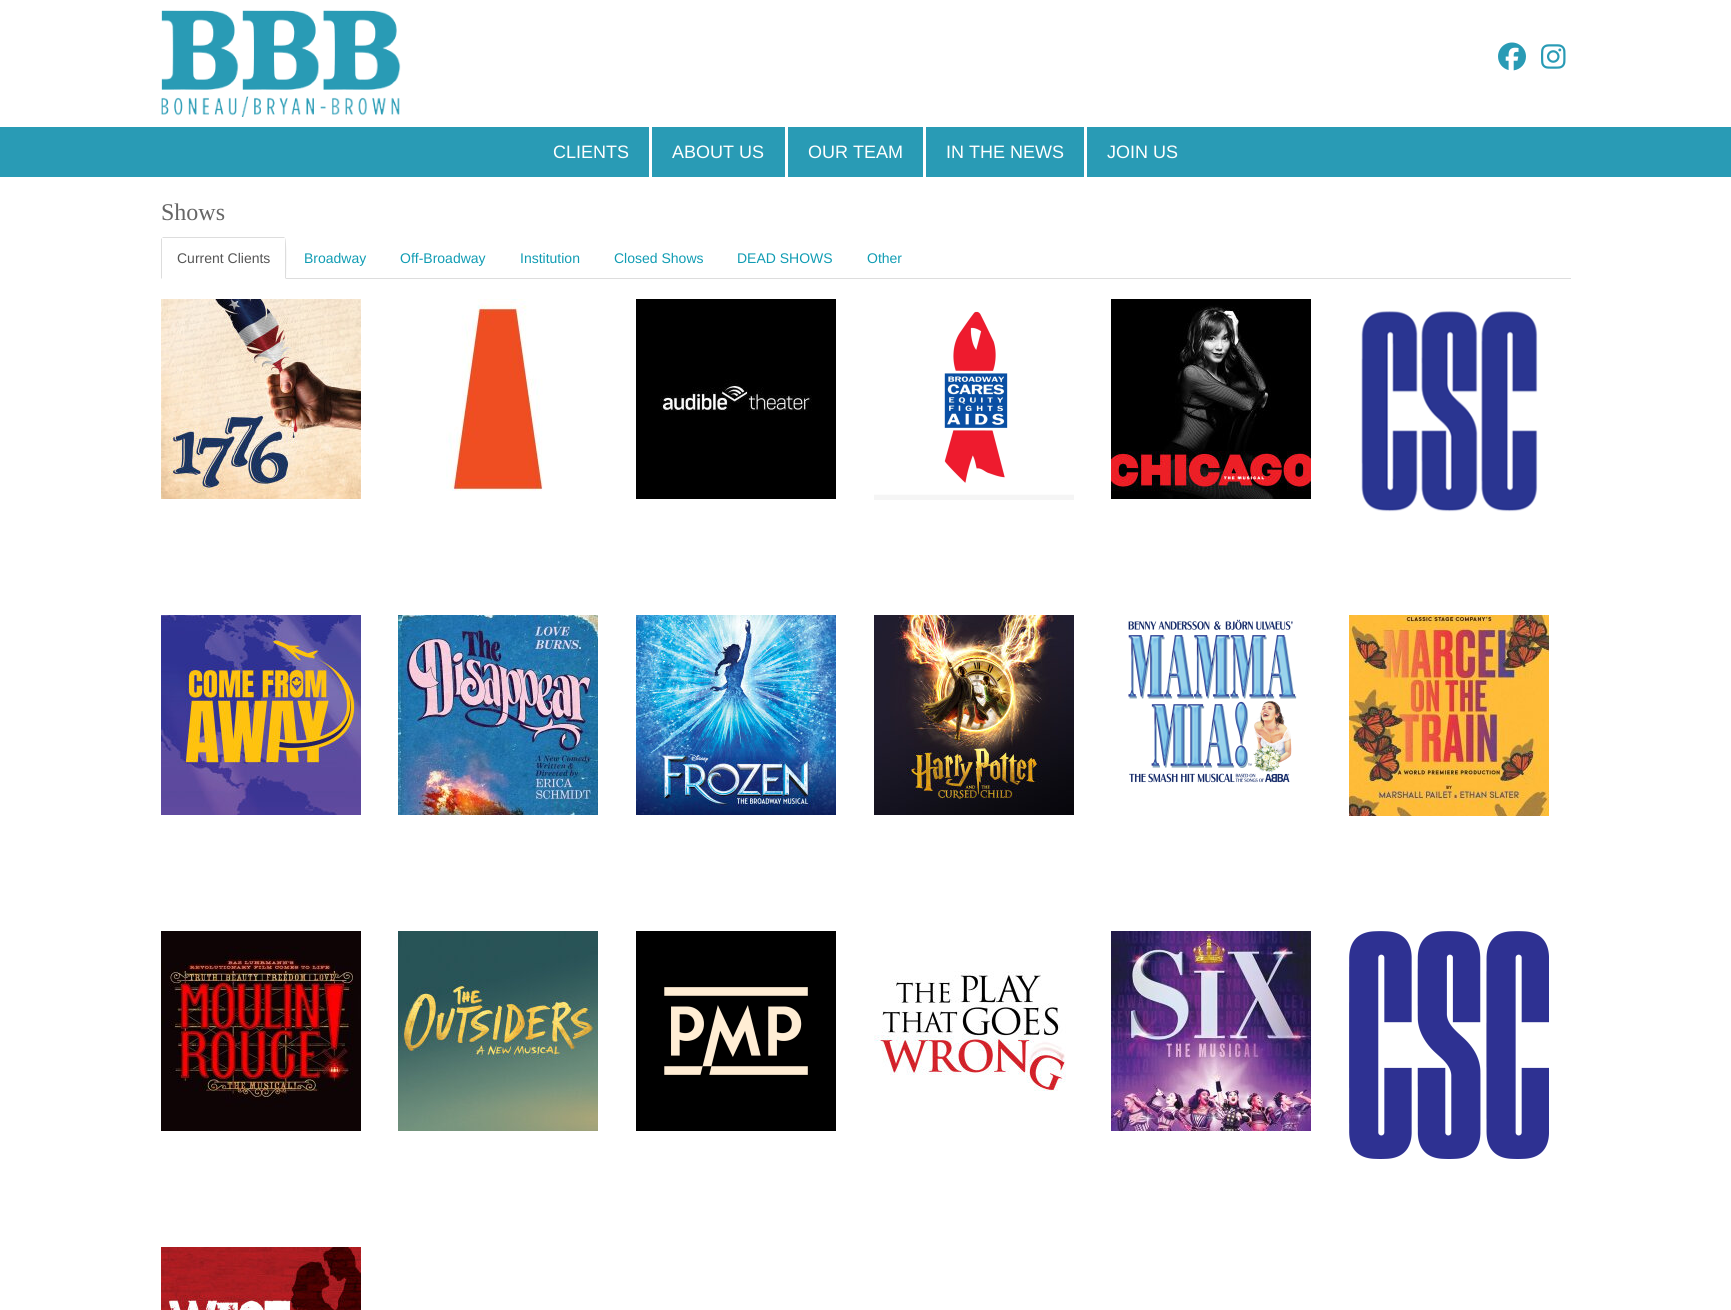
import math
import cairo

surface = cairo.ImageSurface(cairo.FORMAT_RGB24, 1731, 1310)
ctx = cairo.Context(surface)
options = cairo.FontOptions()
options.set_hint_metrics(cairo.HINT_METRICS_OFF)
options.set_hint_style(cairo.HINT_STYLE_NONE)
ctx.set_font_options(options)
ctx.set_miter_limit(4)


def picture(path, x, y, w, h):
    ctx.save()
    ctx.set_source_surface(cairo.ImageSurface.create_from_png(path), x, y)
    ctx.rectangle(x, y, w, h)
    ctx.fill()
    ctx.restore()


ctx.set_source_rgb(1, 1, 1)
ctx.paint()
picture("img1.png", 161, 10, 240, 107)
picture("img2.png", 1498, 42, 28, 29)
picture("img3.png", 1541, 44, 25, 25)
ctx.set_source_rgb(0.161, 0.608, 0.71)
ctx.rectangle(0, 127, 1731, 50)
ctx.fill()
ctx.select_font_face("Liberation Sans")
ctx.set_font_size(18)
ctx.set_source_rgb(1, 1, 1)
ctx.move_to(553, 158)
ctx.show_text("CLIENTS")
ctx.rectangle(649, 127, 3, 50)
ctx.fill()
ctx.move_to(672, 158)
ctx.show_text("ABOUT US")
ctx.rectangle(785, 127, 3, 50)
ctx.fill()
ctx.move_to(808, 158)
ctx.show_text("OUR TEAM")
ctx.rectangle(923, 127, 3, 50)
ctx.fill()
ctx.move_to(946, 158)
ctx.show_text("IN THE NEWS")
ctx.rectangle(1084, 127, 3, 50)
ctx.fill()
ctx.move_to(1107, 158)
ctx.show_text("JOIN US")
ctx.select_font_face("Liberation Serif")
ctx.set_font_size(24)
ctx.set_source_rgb(0.4, 0.4, 0.4)
ctx.move_to(161, 220)
ctx.show_text("Shows")
ctx.set_source_rgb(0.867, 0.867, 0.867)
ctx.rectangle(286, 278, 1285, 1)
ctx.fill()
ctx.new_path()
ctx.move_to(163, 237)
ctx.line_to(162, 238)
ctx.line_to(285, 238)
ctx.line_to(284, 237)
ctx.close_path()
ctx.fill()
ctx.new_path()
ctx.move_to(286, 279)
ctx.curve_to(286, 274, 287, 239, 285, 238)
ctx.line_to(285, 278)
ctx.close_path()
ctx.fill()
ctx.new_path()
ctx.move_to(161, 279)
ctx.line_to(162, 278)
ctx.line_to(162, 238)
ctx.line_to(161, 239)
ctx.close_path()
ctx.fill()
ctx.select_font_face("Liberation Sans")
ctx.set_font_size(14)
ctx.set_source_rgb(0.333, 0.333, 0.333)
ctx.move_to(177, 263)
ctx.show_text("Current Clients")
ctx.set_source_rgb(0.063, 0.612, 0.702)
ctx.move_to(304, 263)
ctx.show_text("Broadway")
ctx.move_to(400, 263)
ctx.show_text("Off-Broadway")
ctx.move_to(520, 263)
ctx.show_text("Institution")
ctx.move_to(614, 263)
ctx.show_text("Closed Shows")
ctx.move_to(737, 263)
ctx.show_text("DEAD SHOWS")
ctx.move_to(867, 263)
ctx.show_text("Other")
picture("img4.png", 161, 299, 200, 200)
picture("img5.png", 446, 299, 97, 192)
picture("img6.png", 636, 299, 200, 200)
picture("img7.png", 874, 311, 200, 189)
picture("img8.png", 1111, 299, 200, 200)
picture("img9.png", 1361, 311, 177, 201)
picture("img10.png", 161, 615, 200, 200)
picture("img11.png", 398, 615, 200, 200)
picture("img12.png", 636, 615, 200, 200)
picture("img13.png", 874, 615, 200, 200)
picture("img14.png", 1128, 619, 169, 164)
picture("img15.png", 1349, 615, 200, 201)
picture("img16.png", 161, 931, 200, 200)
picture("img17.png", 398, 931, 200, 200)
picture("img18.png", 636, 931, 200, 200)
picture("img19.png", 874, 971, 192, 120)
picture("img20.png", 1111, 931, 200, 200)
picture("img21.png", 1349, 931, 200, 228)
picture("img22.png", 161, 1247, 200, 63)
surface.write_to_png("page.png")
